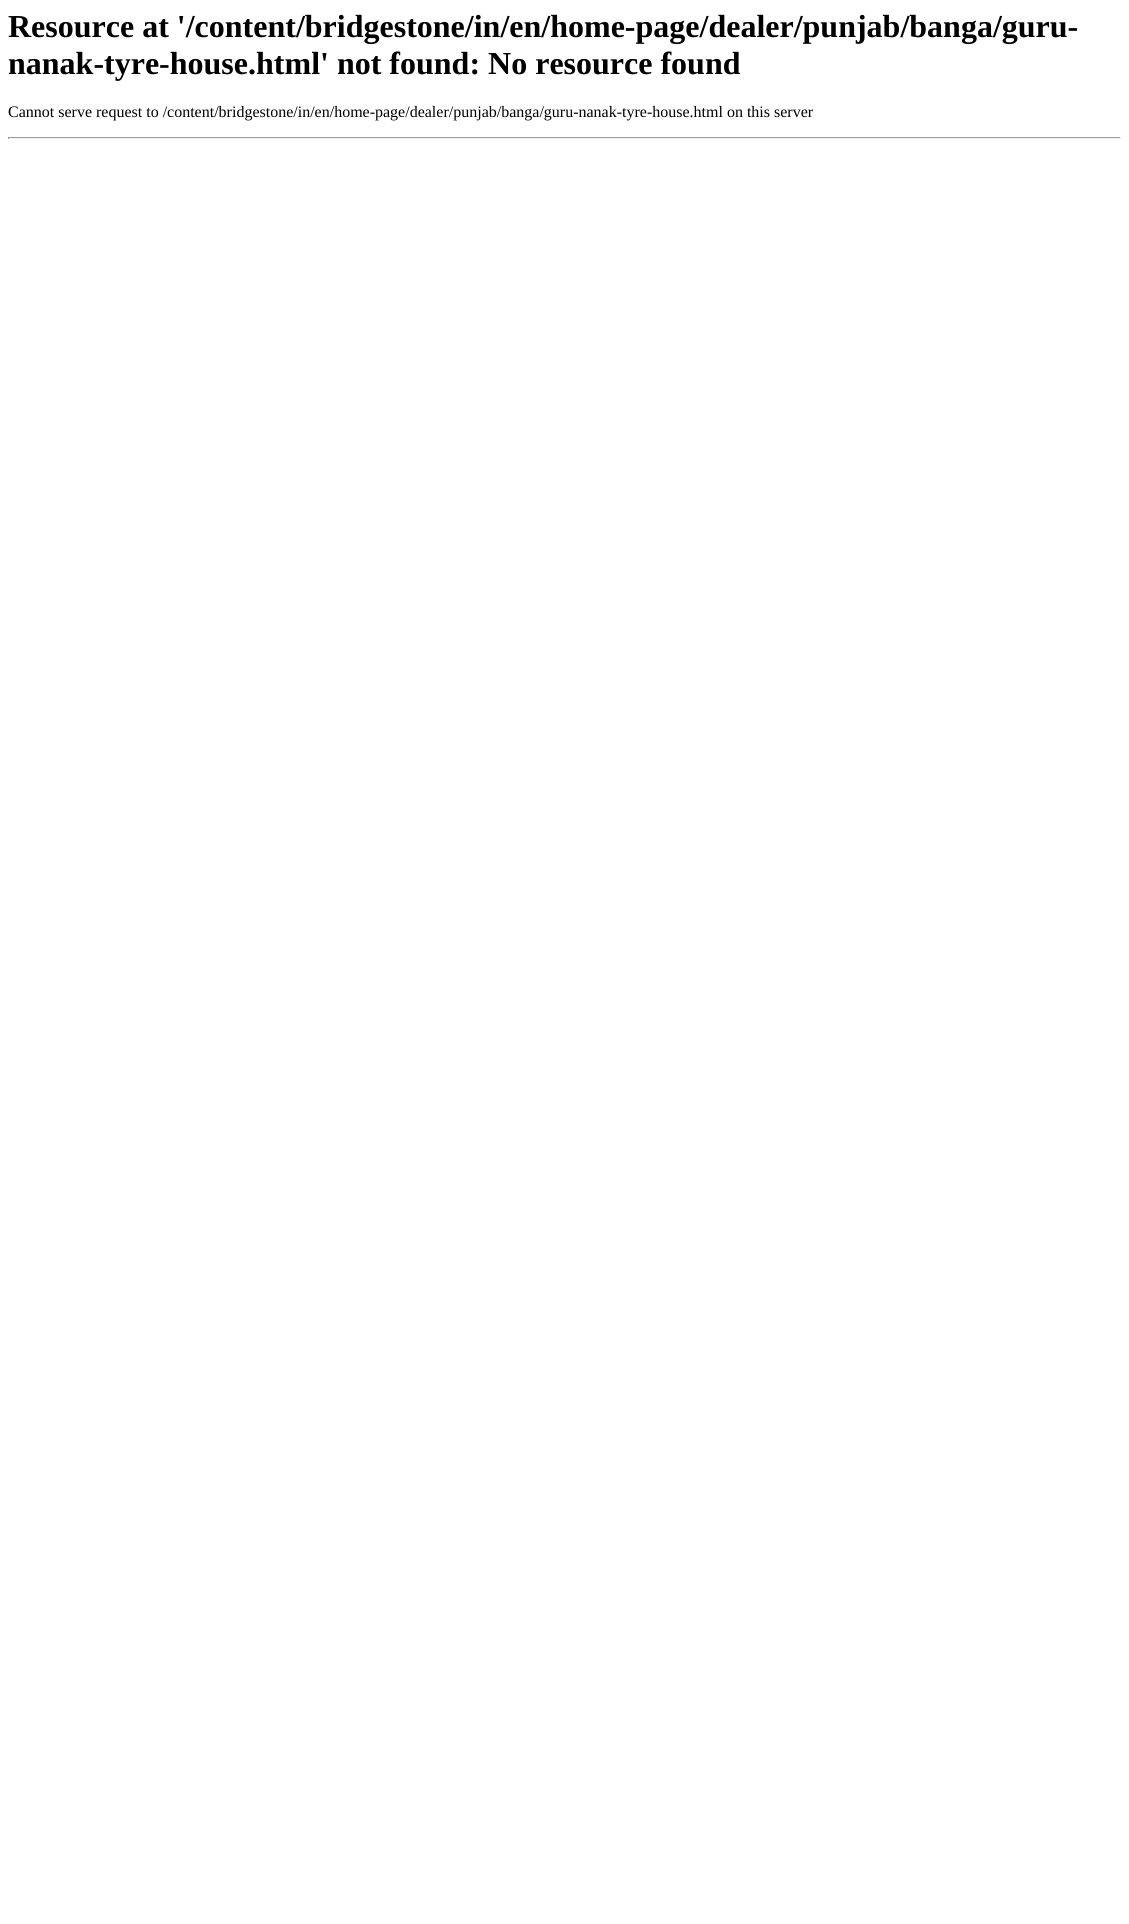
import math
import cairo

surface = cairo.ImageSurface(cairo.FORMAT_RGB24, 1129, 1924)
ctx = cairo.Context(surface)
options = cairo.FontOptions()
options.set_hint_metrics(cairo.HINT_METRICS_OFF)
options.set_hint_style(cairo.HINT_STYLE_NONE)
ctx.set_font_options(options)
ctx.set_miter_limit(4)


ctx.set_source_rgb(1, 1, 1)
ctx.paint()
ctx.select_font_face("Liberation Serif", cairo.FONT_SLANT_NORMAL, cairo.FONT_WEIGHT_BOLD)
ctx.set_font_size(32)
ctx.set_source_rgb(0, 0, 0)
ctx.move_to(8, 37)
ctx.show_text("Resource at '/content/bridgestone/in/en/home-page/dealer/punjab/banga/guru-")
ctx.move_to(8, 74)
ctx.show_text("nanak-tyre-house.html' not found: No resource found")
ctx.select_font_face("Liberation Serif")
ctx.set_font_size(16)
ctx.move_to(8, 117)
ctx.show_text("Cannot serve request to /content/bridgestone/in/en/home-page/dealer/punjab/banga/guru-nanak-tyre-house.html on this server")
ctx.set_source_rgb(0.624, 0.624, 0.624)
ctx.rectangle(8, 137, 1113, 1)
ctx.fill()
ctx.set_source_rgb(0.933, 0.933, 0.933)
ctx.rectangle(1120, 137, 1, 2)
ctx.fill()
ctx.rectangle(8, 138, 1113, 1)
ctx.fill()
ctx.set_source_rgb(0.624, 0.624, 0.624)
ctx.rectangle(8, 137, 1, 2)
ctx.fill()
surface.write_to_png("page.png")
